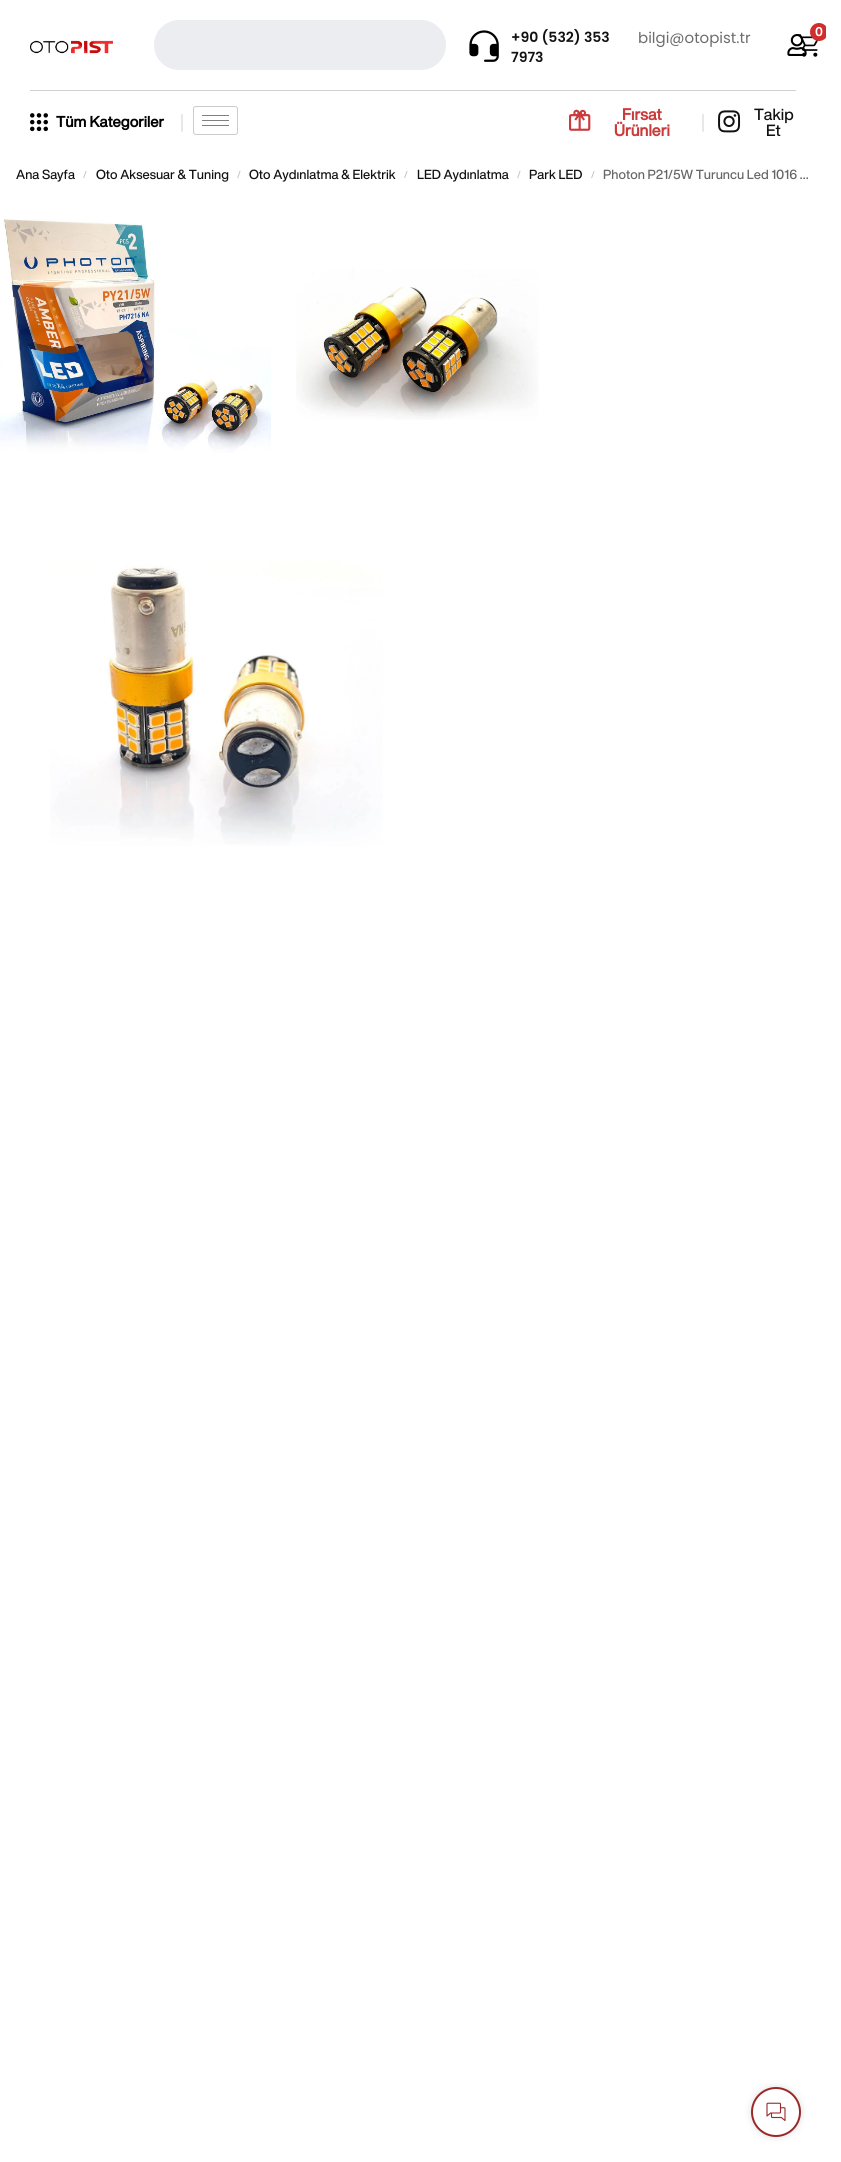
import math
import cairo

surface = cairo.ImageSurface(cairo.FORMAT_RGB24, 841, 2162)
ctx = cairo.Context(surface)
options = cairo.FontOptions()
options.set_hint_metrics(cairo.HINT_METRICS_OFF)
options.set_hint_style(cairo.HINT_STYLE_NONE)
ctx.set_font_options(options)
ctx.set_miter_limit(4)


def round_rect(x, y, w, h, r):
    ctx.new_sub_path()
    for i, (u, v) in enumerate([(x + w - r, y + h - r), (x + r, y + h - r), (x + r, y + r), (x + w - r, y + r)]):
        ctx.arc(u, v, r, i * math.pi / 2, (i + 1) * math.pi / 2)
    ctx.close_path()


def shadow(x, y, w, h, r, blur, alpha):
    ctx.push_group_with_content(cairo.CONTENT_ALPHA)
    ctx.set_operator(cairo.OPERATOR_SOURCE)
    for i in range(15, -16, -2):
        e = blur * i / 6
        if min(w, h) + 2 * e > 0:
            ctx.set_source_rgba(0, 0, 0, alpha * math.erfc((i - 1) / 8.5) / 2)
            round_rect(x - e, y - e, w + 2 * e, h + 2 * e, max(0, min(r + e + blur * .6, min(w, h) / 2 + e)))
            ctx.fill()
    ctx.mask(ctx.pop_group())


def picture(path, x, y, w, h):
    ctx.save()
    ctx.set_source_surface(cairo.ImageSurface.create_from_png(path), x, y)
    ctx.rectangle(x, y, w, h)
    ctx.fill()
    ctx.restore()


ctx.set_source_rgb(1, 1, 1)
ctx.paint()
picture("img1.png", 30, 40, 83, 14)
ctx.set_source_rgb(0.925, 0.929, 0.945)
round_rect(154, 20, 292, 50, 25)
ctx.fill()
picture("img2.png", 469, 30, 30, 32)
ctx.select_font_face("Poppins SemiBold")
ctx.set_font_size(14)
ctx.set_source_rgb(0.067, 0.067, 0.067)
ctx.move_to(511, 42)
ctx.show_text("+90 (532) 353")
ctx.move_to(511, 62)
ctx.show_text("7973")
ctx.select_font_face("Poppins")
ctx.set_font_size(15)
ctx.set_source_rgb(0.427, 0.427, 0.427)
ctx.move_to(638, 43)
ctx.show_text("bilgi@otopist.tr")
picture("img4.png", 787, 34, 20, 22)
picture("img3.png", 797, 34, 22, 23)
ctx.set_source_rgb(0.812, 0.18, 0.18)
ctx.arc(819, 32, 9, 0, 2 * math.pi)
ctx.fill()
ctx.select_font_face("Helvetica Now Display", cairo.FONT_SLANT_NORMAL, cairo.FONT_WEIGHT_BOLD)
ctx.set_font_size(12)
ctx.set_source_rgb(1, 1, 1)
ctx.move_to(815, 36)
ctx.show_text("0")
ctx.set_source_rgb(0.82, 0.82, 0.82)
ctx.rectangle(30, 90, 766, 1)
ctx.fill()
picture("img5.png", 30, 113, 18, 19)
ctx.set_font_size(15)
ctx.set_source_rgb(0, 0, 0)
ctx.move_to(56, 127)
ctx.show_text("Tüm Kategoriler")
picture("img6.png", 181, 114, 2, 18)
round_rect(193.5, 106.5, 44, 28, 2.5)
ctx.set_source_rgb(0.8, 0.8, 0.8)
ctx.set_line_width(1)
ctx.stroke()
ctx.set_source_rgb(0.502, 0.502, 0.502)
ctx.rectangle(202, 115, 27, 1)
ctx.fill()
ctx.rectangle(202, 120, 27, 1)
ctx.fill()
ctx.rectangle(202, 125, 27, 1)
ctx.fill()
picture("img7.png", 569, 109, 22, 22)
ctx.set_font_size(16)
ctx.set_source_rgb(0.792, 0.235, 0.235)
ctx.move_to(622, 120)
ctx.show_text("Fırsat")
ctx.move_to(614, 136)
ctx.show_text("Ürünleri")
picture("img6.png", 702, 114, 2, 18)
picture("img8.png", 718, 110, 23, 23)
ctx.select_font_face("Helvetica Now Display Medium")
ctx.set_source_rgb(0.067, 0.067, 0.067)
ctx.move_to(754, 120)
ctx.show_text("Takip")
ctx.move_to(766, 136)
ctx.show_text("Et")
ctx.set_source_rgb(1, 1, 1)
ctx.rectangle(826, 26, 2, 12)
ctx.fill()
ctx.set_font_size(13)
ctx.set_source_rgb(0.067, 0.067, 0.067)
ctx.move_to(16, 179)
ctx.show_text("Ana Sayfa")
ctx.set_font_size(10)
ctx.set_source_rgb(0.761, 0.761, 0.761)
ctx.move_to(83, 178)
ctx.show_text("/")
ctx.set_font_size(13)
ctx.set_source_rgb(0.067, 0.067, 0.067)
ctx.move_to(96, 179)
ctx.show_text("Oto Aksesuar & Tuning")
ctx.set_font_size(10)
ctx.set_source_rgb(0.761, 0.761, 0.761)
ctx.move_to(237, 178)
ctx.show_text("/")
ctx.set_font_size(13)
ctx.set_source_rgb(0.067, 0.067, 0.067)
ctx.move_to(249, 179)
ctx.show_text("Oto Aydınlatma & Elektrik")
ctx.set_font_size(10)
ctx.set_source_rgb(0.761, 0.761, 0.761)
ctx.move_to(404, 178)
ctx.show_text("/")
ctx.set_font_size(13)
ctx.set_source_rgb(0.067, 0.067, 0.067)
ctx.move_to(417, 179)
ctx.show_text("LED Aydınlatma")
ctx.set_font_size(10)
ctx.set_source_rgb(0.761, 0.761, 0.761)
ctx.move_to(517, 178)
ctx.show_text("/")
ctx.set_font_size(13)
ctx.set_source_rgb(0.067, 0.067, 0.067)
ctx.move_to(529, 179)
ctx.show_text("Park LED")
ctx.set_font_size(10)
ctx.set_source_rgb(0.761, 0.761, 0.761)
ctx.move_to(591, 178)
ctx.show_text("/")
ctx.set_font_size(13)
ctx.set_source_rgb(0.4, 0.4, 0.4)
ctx.move_to(603, 179)
ctx.show_text("Photon P21/5W Turuncu Led 1016 …")
picture("img9.png", 0, 219, 271, 234)
picture("img10.png", 296, 269, 243, 151)
picture("img11.png", 50, 560, 333, 286)
ctx.set_source_rgb(0, 0, 0)
shadow(751, 2087, 50, 50, 25, 4, 0.12)
ctx.set_source_rgb(1, 1, 1)
ctx.arc(776, 2112, 24, 0, 2 * math.pi)
ctx.fill_preserve()
ctx.set_source_rgb(0.604, 0.165, 0.165)
ctx.set_line_width(2)
ctx.stroke()
picture("img12.png", 766, 2102, 20, 19)
surface.write_to_png("page.png")
